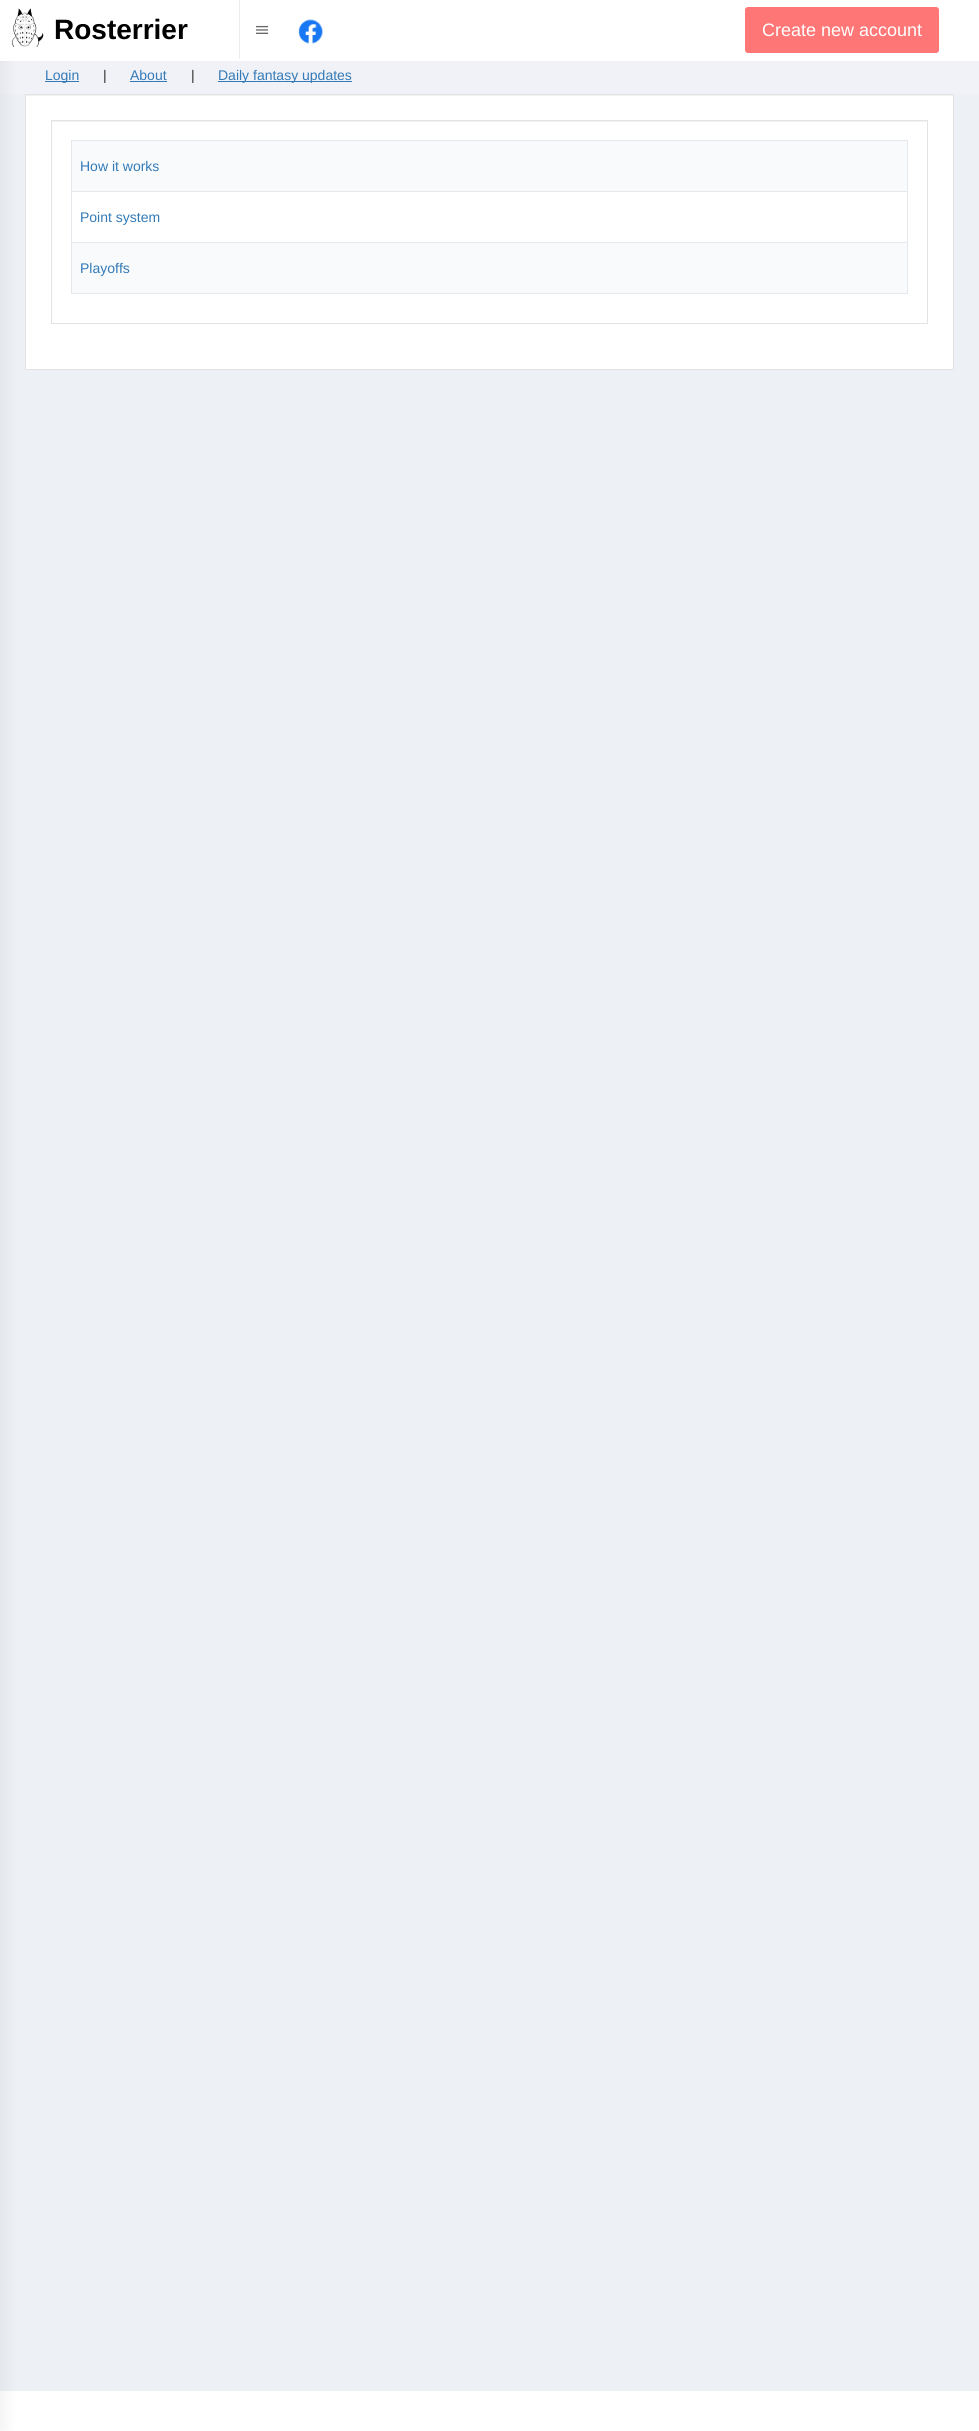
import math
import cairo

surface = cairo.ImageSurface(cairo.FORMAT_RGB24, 979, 2431)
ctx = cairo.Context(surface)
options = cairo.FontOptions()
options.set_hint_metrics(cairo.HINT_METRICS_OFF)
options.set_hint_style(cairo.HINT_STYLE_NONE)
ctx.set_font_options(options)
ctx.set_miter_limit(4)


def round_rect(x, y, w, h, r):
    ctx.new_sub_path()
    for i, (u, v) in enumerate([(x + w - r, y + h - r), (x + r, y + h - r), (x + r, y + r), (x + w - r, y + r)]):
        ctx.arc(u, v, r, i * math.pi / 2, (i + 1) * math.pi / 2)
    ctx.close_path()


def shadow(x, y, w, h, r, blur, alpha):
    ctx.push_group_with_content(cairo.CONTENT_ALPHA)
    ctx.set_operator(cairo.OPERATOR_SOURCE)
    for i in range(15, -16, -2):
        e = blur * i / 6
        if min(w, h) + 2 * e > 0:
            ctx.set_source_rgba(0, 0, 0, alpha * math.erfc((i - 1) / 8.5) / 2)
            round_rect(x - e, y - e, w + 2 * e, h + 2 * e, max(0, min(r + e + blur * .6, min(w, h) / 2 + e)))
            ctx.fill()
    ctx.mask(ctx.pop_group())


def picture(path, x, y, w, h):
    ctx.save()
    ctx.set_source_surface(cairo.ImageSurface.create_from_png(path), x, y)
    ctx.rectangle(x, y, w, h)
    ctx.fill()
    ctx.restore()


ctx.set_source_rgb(0.929, 0.945, 0.961)
ctx.paint()
ctx.set_source_rgb(0.945, 0.949, 0.969)
ctx.rectangle(0, 61, 979, 33)
ctx.fill()
ctx.set_source_rgb(1, 1, 1)
ctx.rectangle(26, 96, 927, 273)
ctx.fill()
ctx.set_source_rgb(0.949, 0.949, 0.949)
ctx.rectangle(26, 95, 927, 1)
ctx.fill()
ctx.rectangle(25.5, 94.5, 928, 275)
ctx.set_source_rgb(0.89, 0.89, 0.89)
ctx.set_line_width(1)
ctx.stroke()
ctx.set_source_rgb(1, 1, 1)
ctx.rectangle(0, 2391, 979, 40)
ctx.fill()
ctx.set_source_rgb(0, 0, 0)
shadow(-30, 0, 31, 2431, 0, 10, 0.08)
ctx.set_source_rgb(1, 1, 1)
ctx.rectangle(0, 0, 979, 61)
ctx.fill()
ctx.set_source_rgb(0.922, 0.922, 0.922)
ctx.rectangle(239, 0, 1, 59)
ctx.fill()
picture("img1.png", 11, 8, 33, 39)
ctx.select_font_face("Liberation Sans", cairo.FONT_SLANT_NORMAL, cairo.FONT_WEIGHT_BOLD)
ctx.set_font_size(28)
ctx.set_source_rgb(0, 0, 0)
ctx.move_to(54, 39)
ctx.show_text("Rosterrier")
picture("img2.png", 256, 25, 13, 9)
picture("img3.png", 298, 19, 25, 25)
ctx.set_source_rgb(1, 0.463, 0.463)
round_rect(745.5, 7.5, 193, 45, 2.5)
ctx.fill_preserve()
ctx.stroke()
ctx.select_font_face("Liberation Sans")
ctx.set_font_size(18)
ctx.set_source_rgb(1, 1, 1)
ctx.move_to(762, 36)
ctx.show_text("Create new account")
ctx.set_source_rgb(0.2, 0.478, 0.718)
ctx.rectangle(45, 81, 34, 1)
ctx.fill()
ctx.set_font_size(14)
ctx.move_to(45, 80)
ctx.show_text("Login")
ctx.set_source_rgb(0.192, 0.192, 0.192)
ctx.move_to(103, 80)
ctx.show_text("|")
ctx.set_source_rgb(0.2, 0.478, 0.718)
ctx.move_to(130, 80)
ctx.show_text("About")
ctx.rectangle(130, 81, 37, 1)
ctx.fill()
ctx.set_source_rgb(0.192, 0.192, 0.192)
ctx.move_to(191, 80)
ctx.show_text("|")
ctx.set_source_rgb(0.2, 0.478, 0.718)
ctx.rectangle(218, 81, 134, 1)
ctx.fill()
ctx.move_to(218, 80)
ctx.show_text("Daily fantasy updates")
ctx.set_source_rgb(0.949, 0.949, 0.949)
ctx.rectangle(52, 121, 875, 1)
ctx.fill()
ctx.rectangle(51.5, 120.5, 876, 203)
ctx.set_source_rgb(0.89, 0.89, 0.89)
ctx.stroke()
ctx.set_source_rgb(0.894, 0.906, 0.918)
ctx.rectangle(71, 140, 837, 1)
ctx.fill()
ctx.rectangle(907, 140, 1, 154)
ctx.fill()
ctx.rectangle(71, 293, 837, 1)
ctx.fill()
ctx.rectangle(71, 140, 1, 154)
ctx.fill()
ctx.set_source_rgb(0.969, 0.98, 0.988)
ctx.rectangle(72, 141, 835, 50)
ctx.fill()
ctx.set_source_rgb(0.2, 0.478, 0.718)
ctx.move_to(80, 171)
ctx.show_text("How it works")
ctx.set_source_rgb(0.894, 0.906, 0.918)
ctx.rectangle(71, 191, 837, 1)
ctx.fill()
ctx.set_source_rgb(0.2, 0.478, 0.718)
ctx.move_to(80, 222)
ctx.show_text("Point system")
ctx.set_source_rgb(0.969, 0.98, 0.988)
ctx.rectangle(72, 243, 835, 50)
ctx.fill()
ctx.set_source_rgb(0.894, 0.906, 0.918)
ctx.rectangle(71, 242, 837, 1)
ctx.fill()
ctx.set_source_rgb(0.2, 0.478, 0.718)
ctx.move_to(80, 273)
ctx.show_text("Playoffs")
surface.write_to_png("page.png")
